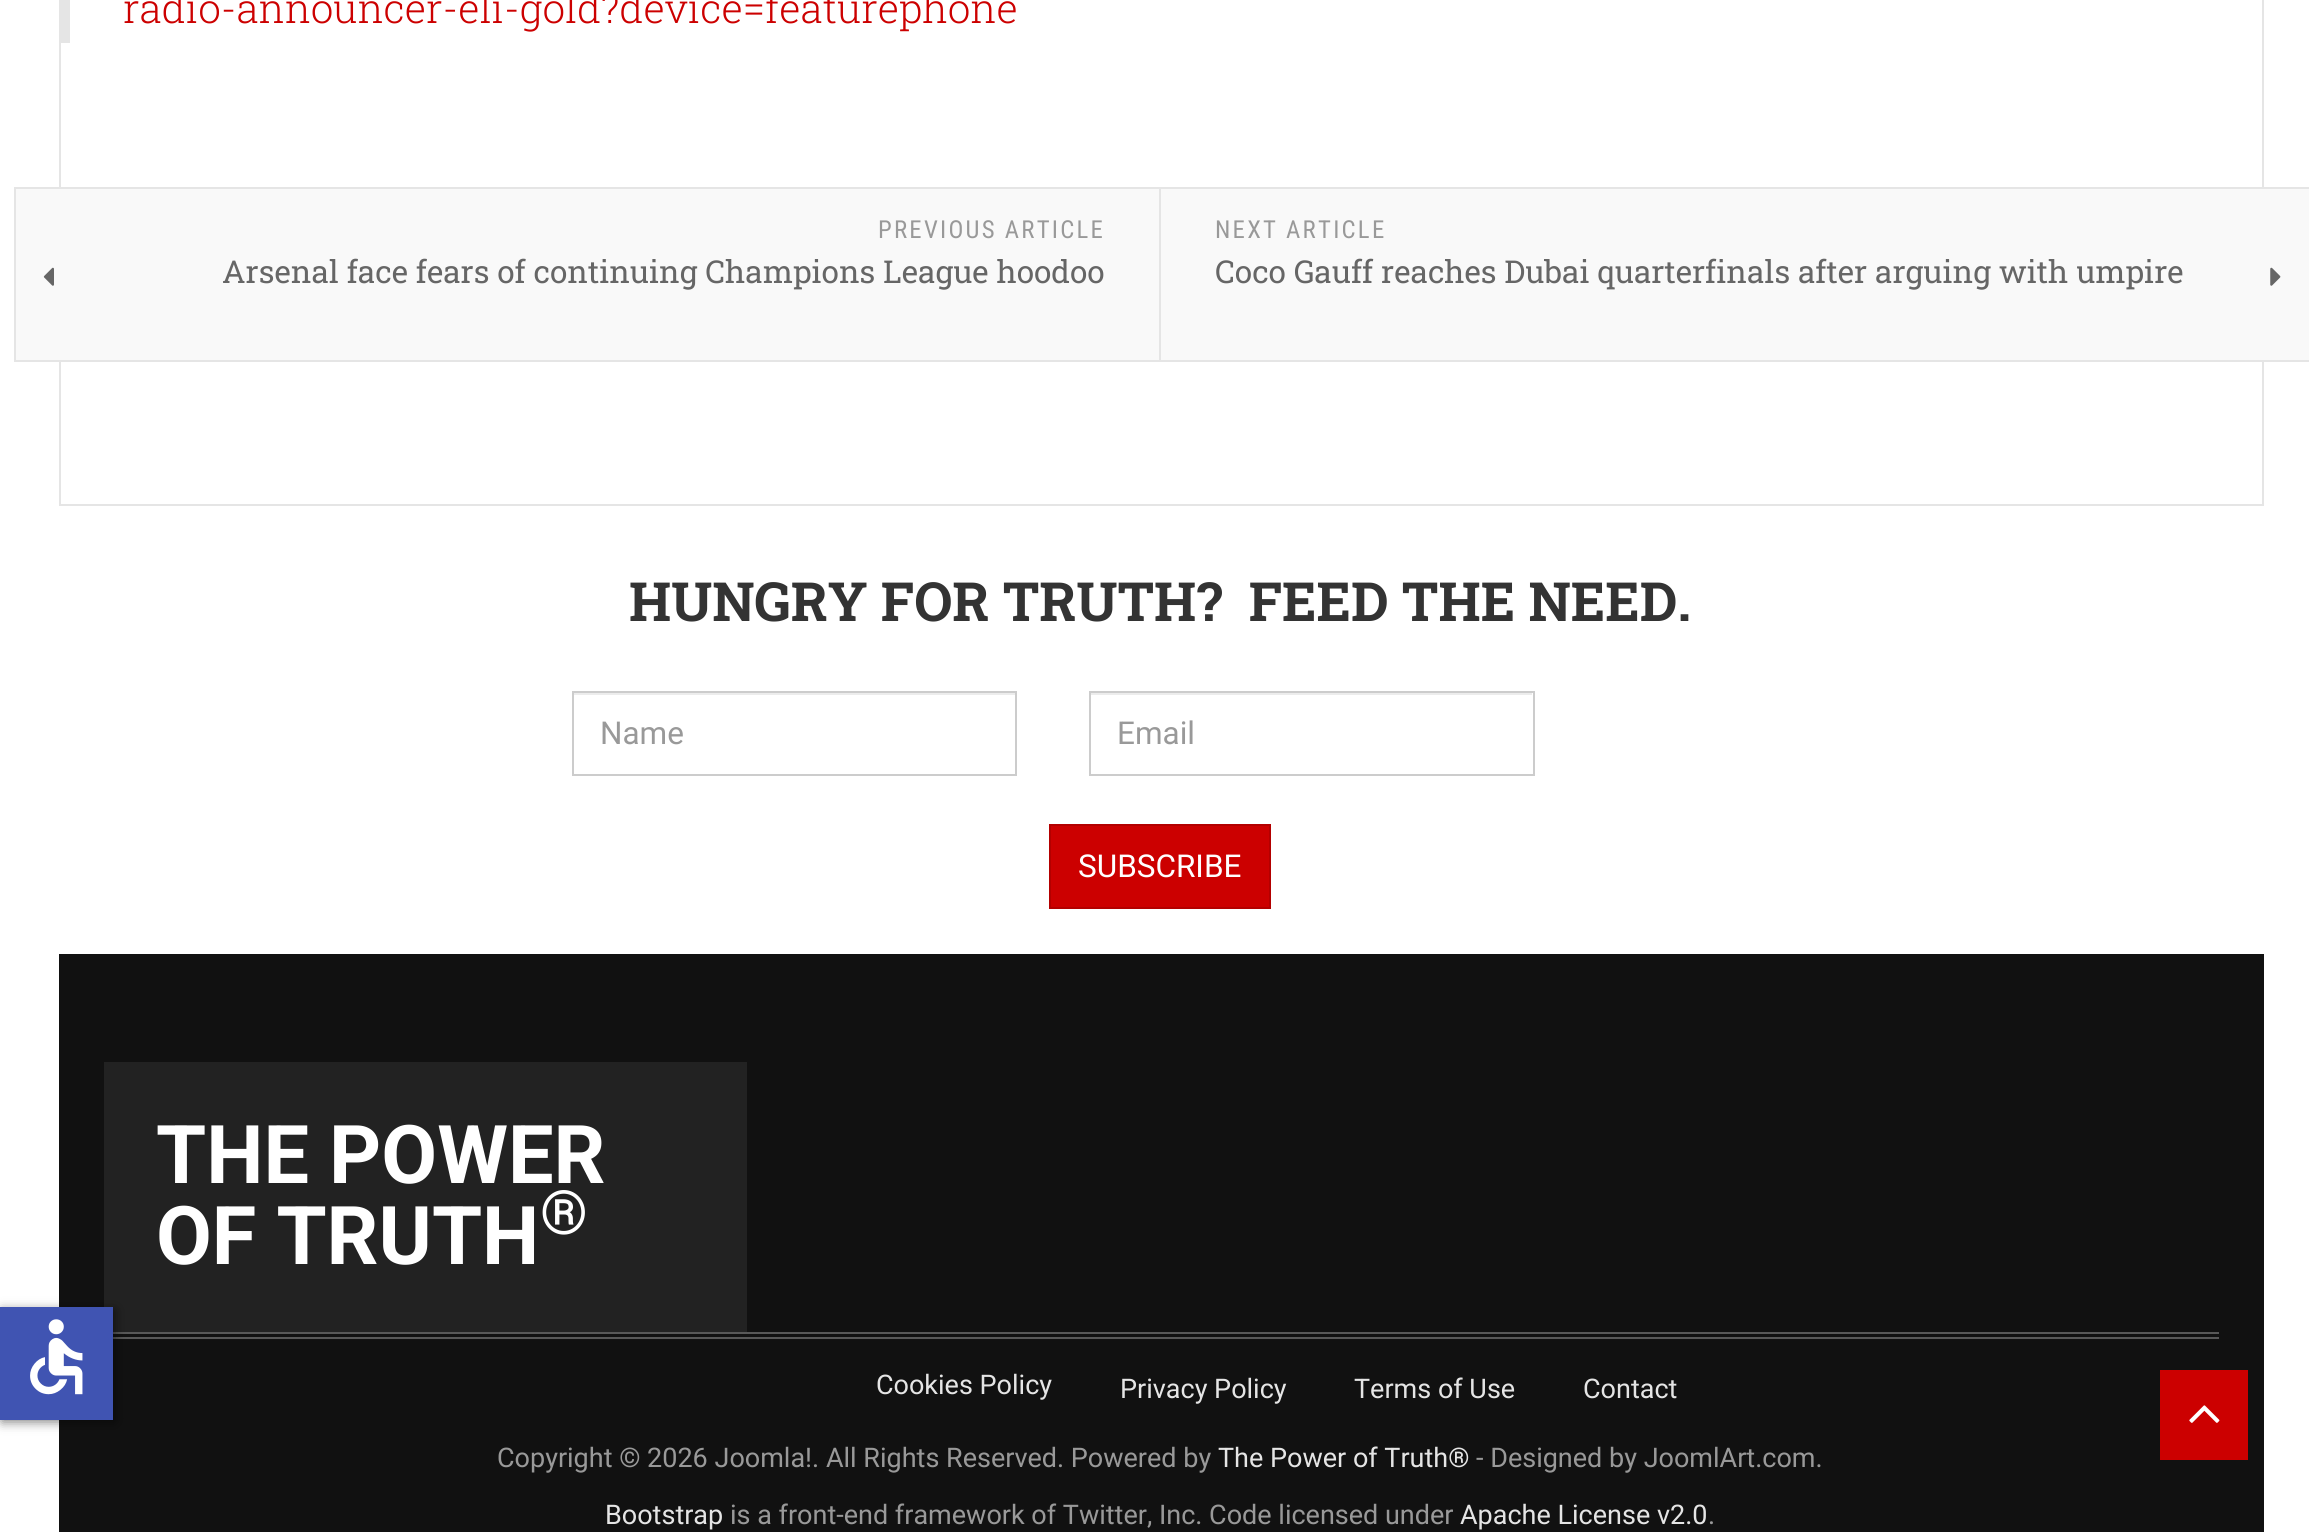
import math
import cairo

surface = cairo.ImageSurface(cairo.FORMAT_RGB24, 2319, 1532)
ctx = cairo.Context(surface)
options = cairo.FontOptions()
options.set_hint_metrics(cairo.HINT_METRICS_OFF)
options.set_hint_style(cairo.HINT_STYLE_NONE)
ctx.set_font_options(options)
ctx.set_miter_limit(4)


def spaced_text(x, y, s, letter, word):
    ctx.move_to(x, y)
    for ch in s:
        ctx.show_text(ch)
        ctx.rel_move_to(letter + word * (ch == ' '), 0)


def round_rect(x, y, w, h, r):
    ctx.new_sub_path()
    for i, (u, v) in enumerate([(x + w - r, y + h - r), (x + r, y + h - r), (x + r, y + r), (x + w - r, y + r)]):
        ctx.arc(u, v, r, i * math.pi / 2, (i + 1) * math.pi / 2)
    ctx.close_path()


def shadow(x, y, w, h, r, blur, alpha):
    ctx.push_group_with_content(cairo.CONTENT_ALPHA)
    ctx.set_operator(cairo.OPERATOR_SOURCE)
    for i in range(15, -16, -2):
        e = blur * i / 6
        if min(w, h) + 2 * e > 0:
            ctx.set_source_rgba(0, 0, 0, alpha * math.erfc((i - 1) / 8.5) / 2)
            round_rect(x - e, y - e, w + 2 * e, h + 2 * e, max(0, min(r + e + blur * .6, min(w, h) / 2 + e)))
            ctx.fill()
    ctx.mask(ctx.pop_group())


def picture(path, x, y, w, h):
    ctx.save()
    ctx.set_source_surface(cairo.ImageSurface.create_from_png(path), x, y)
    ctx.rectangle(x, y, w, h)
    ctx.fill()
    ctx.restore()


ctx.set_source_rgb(1, 1, 1)
ctx.paint()
ctx.rectangle(60, -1, 2203, 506)
ctx.set_source_rgb(0.898, 0.898, 0.898)
ctx.stroke()
ctx.rectangle(61, 0, 9, 43)
ctx.fill()
ctx.select_font_face("Roboto Slab Light")
ctx.set_font_size(40.5)
ctx.set_source_rgb(0.8, 0, 0)
ctx.move_to(123, 23)
ctx.show_text("radio-announcer-eli-gold?device=featurephone")
ctx.set_source_rgb(0.898, 0.898, 0.898)
ctx.rectangle(14, 187, 2295, 2)
ctx.fill()
ctx.rectangle(14, 360, 2295, 2)
ctx.fill()
ctx.rectangle(14, 187, 2, 175)
ctx.fill()
ctx.rectangle(1159, 189, 2, 171)
ctx.fill()
ctx.set_source_rgb(0.973, 0.973, 0.973)
ctx.rectangle(16, 189, 1143, 171)
ctx.fill()
ctx.select_font_face("Roboto Condensed")
ctx.set_font_size(24.75)
ctx.set_source_rgb(0.6, 0.6, 0.6)
spaced_text(878, 238, "PREVIOUS ARTICLE", 2.25, 0)
picture("img1.png", 43, 267, 11, 19)
ctx.select_font_face("Roboto Slab")
ctx.set_font_size(31.5)
ctx.set_source_rgb(0.4, 0.4, 0.4)
ctx.move_to(222, 283)
ctx.show_text("Arsenal face fears of continuing Champions League hoodoo")
ctx.set_source_rgb(0.973, 0.973, 0.973)
ctx.rectangle(1161, 189, 1148, 171)
ctx.fill()
ctx.select_font_face("Roboto Condensed")
ctx.set_font_size(24.75)
ctx.set_source_rgb(0.6, 0.6, 0.6)
spaced_text(1215, 238, "NEXT ARTICLE", 2.25, 0)
ctx.select_font_face("Roboto Slab")
ctx.set_font_size(31.5)
ctx.set_source_rgb(0.4, 0.4, 0.4)
ctx.move_to(1215, 283)
ctx.show_text("Coco Gauff reaches Dubai quarterfinals after arguing with umpire")
picture("img2.png", 2270, 267, 11, 19)
ctx.select_font_face("Roboto Slab", cairo.FONT_SLANT_NORMAL, cairo.FONT_WEIGHT_BOLD)
ctx.set_font_size(54)
ctx.set_source_rgb(0.2, 0.2, 0.2)
ctx.move_to(629, 621)
ctx.show_text("HUNGRY FOR TRUTH?  FEED THE NEED.")
ctx.set_source_rgb(0.925, 0.925, 0.925)
ctx.rectangle(574, 693, 441, 2)
ctx.fill()
ctx.rectangle(573, 692, 443, 83)
ctx.set_source_rgb(0.8, 0.8, 0.8)
ctx.stroke()
ctx.select_font_face("Roboto")
ctx.set_font_size(31.5)
ctx.set_source_rgb(0.6, 0.6, 0.6)
ctx.move_to(600, 744)
ctx.show_text("Name")
ctx.set_source_rgb(0.925, 0.925, 0.925)
ctx.rectangle(1091, 693, 441, 2)
ctx.fill()
ctx.rectangle(1090, 692, 444, 83)
ctx.set_source_rgb(0.8, 0.8, 0.8)
ctx.stroke()
ctx.set_source_rgb(0.6, 0.6, 0.6)
ctx.move_to(1117, 744)
ctx.show_text("Email")
ctx.set_source_rgb(0.8, 0, 0)
ctx.rectangle(1050, 825, 220, 83)
ctx.fill_preserve()
ctx.set_source_rgb(0.702, 0, 0)
ctx.stroke()
ctx.set_source_rgb(1, 1, 1)
ctx.move_to(1078, 877)
ctx.show_text("SUBSCRIBE")
ctx.set_source_rgb(0.067, 0.067, 0.067)
ctx.rectangle(59, 954, 2205, 578)
ctx.fill()
ctx.set_source_rgb(0.133, 0.133, 0.133)
ctx.rectangle(104, 1062, 643, 270)
ctx.fill()
ctx.set_source_rgb(0.345, 0.345, 0.345)
ctx.rectangle(113, 1332, 2106, 2)
ctx.fill()
ctx.rectangle(113, 1337, 2106, 2)
ctx.fill()
ctx.set_source_rgb(0, 0, 0)
shadow(2, 1310, 113, 112, 0, 5.5, 0.5)
ctx.set_source_rgb(0.251, 0.329, 0.698)
ctx.rectangle(0, 1307, 113, 113)
ctx.fill()
picture("img3.png", 30, 1319, 53, 76)
ctx.select_font_face("Roboto", cairo.FONT_SLANT_NORMAL, cairo.FONT_WEIGHT_BOLD)
ctx.set_font_size(81)
ctx.set_source_rgb(1, 1, 1)
ctx.move_to(156, 1183)
ctx.show_text("THE POWER")
ctx.move_to(156, 1264)
ctx.show_text("OF TRUTH")
ctx.set_font_size(61)
ctx.move_to(540, 1234)
ctx.show_text("®")
ctx.select_font_face("Roboto")
ctx.set_font_size(27)
ctx.set_source_rgb(0.898, 0.898, 0.898)
ctx.move_to(876, 1394)
ctx.show_text("Cookies Policy")
ctx.move_to(1120, 1398)
ctx.show_text("Privacy Policy")
ctx.move_to(1354, 1398)
ctx.show_text("Terms of Use")
ctx.move_to(1583, 1398)
ctx.show_text("Contact")
ctx.set_source_rgb(0.6, 0.6, 0.6)
ctx.move_to(497, 1467)
ctx.show_text("Copyright © 2026 Joomla!. All Rights Reserved. Powered by")
ctx.set_source_rgb(0.898, 0.898, 0.898)
ctx.move_to(1218, 1467)
ctx.show_text("The Power of Truth®")
ctx.set_source_rgb(0.6, 0.6, 0.6)
ctx.move_to(1476, 1467)
ctx.show_text("- Designed by JoomlArt.com.")
ctx.set_source_rgb(0.898, 0.898, 0.898)
ctx.move_to(605, 1524)
ctx.show_text("Bootstrap")
ctx.set_source_rgb(0.6, 0.6, 0.6)
ctx.move_to(730, 1524)
ctx.show_text("is a front-end framework of Twitter, Inc. Code licensed under")
ctx.set_source_rgb(0.898, 0.898, 0.898)
ctx.move_to(1460, 1524)
ctx.show_text("Apache License v2.0")
ctx.set_source_rgb(0.6, 0.6, 0.6)
ctx.move_to(1708, 1524)
ctx.show_text(".")
ctx.set_source_rgb(0.8, 0, 0)
ctx.rectangle(2160, 1370, 88, 90)
ctx.fill()
picture("img4.png", 2189, 1405, 31, 18)
surface.write_to_png("page.png")
